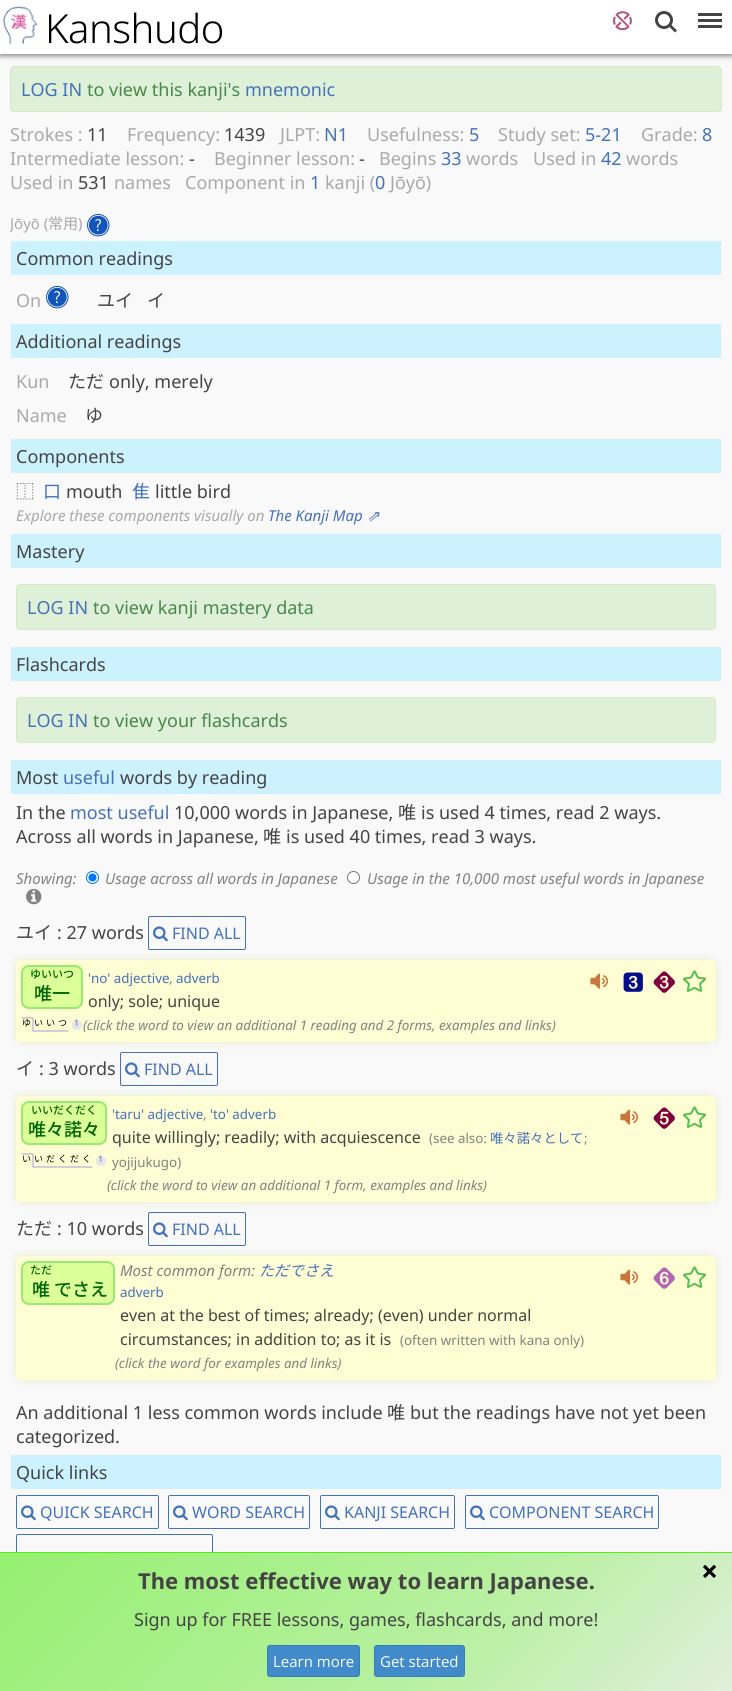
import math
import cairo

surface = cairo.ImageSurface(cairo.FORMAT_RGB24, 732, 1691)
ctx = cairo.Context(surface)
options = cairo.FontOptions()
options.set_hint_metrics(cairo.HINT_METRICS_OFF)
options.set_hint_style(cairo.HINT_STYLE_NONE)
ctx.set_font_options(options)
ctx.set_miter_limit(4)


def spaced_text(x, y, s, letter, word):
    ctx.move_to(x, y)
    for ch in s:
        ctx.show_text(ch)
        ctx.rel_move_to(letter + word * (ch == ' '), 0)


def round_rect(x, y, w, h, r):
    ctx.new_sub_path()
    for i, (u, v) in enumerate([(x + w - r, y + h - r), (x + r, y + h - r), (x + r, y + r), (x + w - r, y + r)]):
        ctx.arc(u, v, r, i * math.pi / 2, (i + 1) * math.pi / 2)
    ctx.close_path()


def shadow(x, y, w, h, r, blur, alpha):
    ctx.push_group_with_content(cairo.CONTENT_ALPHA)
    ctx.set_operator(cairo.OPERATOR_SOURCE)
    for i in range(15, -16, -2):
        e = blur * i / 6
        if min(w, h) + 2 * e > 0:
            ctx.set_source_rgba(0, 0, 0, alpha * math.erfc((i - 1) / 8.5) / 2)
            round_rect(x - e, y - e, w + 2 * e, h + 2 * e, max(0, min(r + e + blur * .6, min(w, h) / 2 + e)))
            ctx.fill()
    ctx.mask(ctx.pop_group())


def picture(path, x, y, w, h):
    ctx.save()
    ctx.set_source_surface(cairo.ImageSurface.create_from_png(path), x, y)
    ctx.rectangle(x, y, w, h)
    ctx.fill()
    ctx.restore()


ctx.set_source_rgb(0.973, 0.973, 0.973)
ctx.paint()
ctx.set_source_rgb(0.533, 0.533, 0.533)
shadow(0, 2, 732, 54, 0, 2.5, 1)
ctx.set_source_rgb(1, 1, 1)
ctx.rectangle(0, 0, 732, 54)
ctx.fill()
picture("img1.png", 3, 6, 35, 38)
ctx.select_font_face("Noto Sans Light")
ctx.set_font_size(40)
ctx.set_source_rgb(0, 0, 0)
spaced_text(45, 43, "Kanshudo", -0.5, 0)
picture("img2.png", 613, 11, 19, 20)
ctx.arc(664, 20, 7.5, 0, 2 * math.pi)
ctx.set_source_rgb(0.267, 0.267, 0.267)
ctx.set_line_width(3)
ctx.stroke()
ctx.new_path()
ctx.move_to(671, 24.5)
ctx.line_to(677, 30.5)
ctx.line_to(675, 32.5)
ctx.line_to(669, 26.5)
ctx.close_path()
ctx.fill()
ctx.rectangle(698, 19, 24, 3)
ctx.fill()
ctx.rectangle(698, 13, 24, 3)
ctx.fill()
ctx.rectangle(698, 25, 24, 3)
ctx.fill()
ctx.set_source_rgb(0.875, 0.941, 0.847)
round_rect(10.5, 66.5, 711, 45, 3.5)
ctx.fill_preserve()
ctx.set_source_rgb(0.839, 0.914, 0.776)
ctx.set_line_width(1)
ctx.stroke()
ctx.select_font_face("Noto Sans")
ctx.set_font_size(18)
ctx.set_source_rgb(0.267, 0.447, 0.725)
ctx.move_to(21, 96)
ctx.show_text("LOG IN")
ctx.set_source_rgb(0.275, 0.533, 0.278)
ctx.move_to(87, 96)
ctx.show_text("to view this kanji's")
ctx.set_source_rgb(0.267, 0.447, 0.725)
ctx.move_to(245, 96)
ctx.show_text("mnemonic")
ctx.set_source_rgb(0.663, 0.663, 0.663)
ctx.move_to(10, 141)
ctx.show_text("Strokes :")
ctx.set_source_rgb(0.267, 0.267, 0.267)
ctx.move_to(87, 141)
ctx.show_text("11")
ctx.set_source_rgb(0.663, 0.663, 0.663)
ctx.move_to(127, 141)
ctx.show_text("Frequency:")
ctx.set_source_rgb(0.267, 0.267, 0.267)
ctx.move_to(224, 141)
ctx.show_text("1439")
ctx.set_source_rgb(0.663, 0.663, 0.663)
ctx.move_to(280, 141)
ctx.show_text("JLPT:")
ctx.set_source_rgb(0.267, 0.447, 0.725)
ctx.move_to(324, 141)
ctx.show_text("N1")
ctx.set_source_rgb(0.663, 0.663, 0.663)
ctx.move_to(367, 141)
ctx.show_text("Usefulness:")
ctx.set_source_rgb(0.267, 0.447, 0.725)
ctx.move_to(469, 141)
ctx.show_text("5")
ctx.set_source_rgb(0.663, 0.663, 0.663)
ctx.move_to(498, 141)
ctx.show_text("Study set:")
ctx.set_source_rgb(0.267, 0.447, 0.725)
ctx.move_to(585, 141)
ctx.show_text("5-21")
ctx.set_source_rgb(0.663, 0.663, 0.663)
ctx.move_to(641, 141)
ctx.show_text("Grade:")
ctx.set_source_rgb(0.267, 0.447, 0.725)
ctx.move_to(702, 141)
ctx.show_text("8")
ctx.set_source_rgb(0.663, 0.663, 0.663)
ctx.move_to(10, 165)
ctx.show_text("Intermediate lesson:")
ctx.set_source_rgb(0.267, 0.267, 0.267)
ctx.move_to(189, 165)
ctx.show_text("-")
ctx.set_source_rgb(0.663, 0.663, 0.663)
ctx.move_to(214, 165)
ctx.show_text("Beginner lesson:")
ctx.set_source_rgb(0.267, 0.267, 0.267)
ctx.move_to(359, 165)
ctx.show_text("-")
ctx.set_source_rgb(0.663, 0.663, 0.663)
ctx.move_to(379, 165)
ctx.show_text("Begins")
ctx.set_source_rgb(0.267, 0.447, 0.725)
ctx.move_to(441, 165)
ctx.show_text("33")
ctx.set_source_rgb(0.663, 0.663, 0.663)
ctx.move_to(466, 165)
ctx.show_text("words")
ctx.move_to(533, 165)
ctx.show_text("Used in")
ctx.set_source_rgb(0.267, 0.447, 0.725)
ctx.move_to(601, 165)
ctx.show_text("42")
ctx.set_source_rgb(0.663, 0.663, 0.663)
ctx.move_to(626, 165)
ctx.show_text("words")
ctx.move_to(10, 189)
ctx.show_text("Used in")
ctx.set_source_rgb(0.267, 0.267, 0.267)
ctx.move_to(78, 189)
ctx.show_text("531")
ctx.set_source_rgb(0.663, 0.663, 0.663)
ctx.move_to(114, 189)
ctx.show_text("names")
ctx.move_to(185, 189)
ctx.show_text("Component in")
ctx.set_source_rgb(0.267, 0.447, 0.725)
ctx.move_to(310, 189)
ctx.show_text("1")
ctx.set_source_rgb(0.663, 0.663, 0.663)
ctx.move_to(325, 189)
ctx.show_text("kanji (")
ctx.set_source_rgb(0.267, 0.447, 0.725)
ctx.move_to(375, 189)
ctx.show_text("0")
ctx.set_source_rgb(0.663, 0.663, 0.663)
ctx.move_to(390, 189)
ctx.show_text("Jōyō)")
ctx.save()
ctx.rectangle(10, 56, 712, 184)
ctx.clip()
ctx.set_font_size(15)
ctx.move_to(10, 229)
ctx.show_text("Jōyō (")
ctx.restore()
ctx.select_font_face("Noto Sans CJK JP")
ctx.set_font_size(15)
ctx.move_to(48, 229)
ctx.show_text("常用")
ctx.select_font_face("Noto Sans")
ctx.move_to(78, 229)
ctx.show_text(")")
picture("img3.png", 87, 213, 23, 24)
ctx.set_source_rgb(0.8, 0.949, 1)
ctx.rectangle(11, 241, 710, 34)
ctx.fill()
ctx.set_font_size(18)
ctx.set_source_rgb(0.267, 0.267, 0.267)
ctx.move_to(16, 265)
ctx.show_text("Common readings")
ctx.set_source_rgb(0.663, 0.663, 0.663)
ctx.move_to(16, 307)
ctx.show_text("On")
picture("img3.png", 46, 285, 23, 24)
ctx.select_font_face("Noto Sans CJK JP")
ctx.set_source_rgb(0.267, 0.267, 0.267)
ctx.move_to(97, 307)
ctx.show_text("ユイ")
ctx.move_to(147, 307)
ctx.show_text("イ")
ctx.set_source_rgb(0.8, 0.949, 1)
ctx.rectangle(11, 324, 710, 34)
ctx.fill()
ctx.select_font_face("Noto Sans")
ctx.set_source_rgb(0.267, 0.267, 0.267)
ctx.move_to(16, 348)
ctx.show_text("Additional readings")
ctx.set_source_rgb(0.663, 0.663, 0.663)
ctx.move_to(16, 388)
ctx.show_text("Kun")
ctx.select_font_face("Noto Sans CJK JP")
ctx.set_source_rgb(0.267, 0.267, 0.267)
ctx.move_to(68, 388)
ctx.show_text("ただ")
ctx.select_font_face("Noto Sans")
ctx.move_to(109, 388)
ctx.show_text("only, merely")
ctx.set_source_rgb(0.663, 0.663, 0.663)
ctx.move_to(16, 422)
ctx.show_text("Name")
ctx.select_font_face("Noto Sans CJK JP")
ctx.set_source_rgb(0.267, 0.267, 0.267)
ctx.move_to(85, 422)
ctx.show_text("ゆ")
ctx.set_source_rgb(0.8, 0.949, 1)
ctx.rectangle(11, 439, 710, 34)
ctx.fill()
ctx.select_font_face("Noto Sans")
ctx.set_source_rgb(0.267, 0.267, 0.267)
ctx.move_to(16, 463)
ctx.show_text("Components")
ctx.select_font_face("Noto Sans CJK JP")
ctx.move_to(16, 498)
ctx.show_text("⿰")
ctx.set_source_rgb(0.267, 0.447, 0.725)
ctx.move_to(43, 498)
ctx.show_text("口")
ctx.select_font_face("Noto Sans")
ctx.set_source_rgb(0.267, 0.267, 0.267)
ctx.move_to(66, 498)
ctx.show_text("mouth")
ctx.select_font_face("Noto Sans CJK JP")
ctx.set_source_rgb(0.267, 0.447, 0.725)
ctx.move_to(132, 498)
ctx.show_text("隹")
ctx.select_font_face("Noto Sans")
ctx.set_source_rgb(0.267, 0.267, 0.267)
ctx.move_to(155, 498)
ctx.show_text("little bird")
ctx.select_font_face("Noto Sans", cairo.FONT_SLANT_ITALIC)
ctx.set_font_size(15)
ctx.set_source_rgb(0.663, 0.663, 0.663)
ctx.move_to(16, 521)
ctx.show_text("Explore these components visually on")
ctx.set_source_rgb(0.267, 0.447, 0.725)
ctx.move_to(268, 521)
ctx.show_text("The Kanji Map")
ctx.select_font_face("DejaVu Sans", cairo.FONT_SLANT_ITALIC)
ctx.move_to(367, 521)
ctx.show_text("⇗")
ctx.set_source_rgb(0.8, 0.949, 1)
ctx.rectangle(11, 534, 710, 34)
ctx.fill()
ctx.select_font_face("Noto Sans")
ctx.set_font_size(18)
ctx.set_source_rgb(0.267, 0.267, 0.267)
ctx.move_to(16, 558)
ctx.show_text("Mastery")
ctx.set_source_rgb(0.875, 0.941, 0.847)
round_rect(16.5, 584.5, 699, 45, 3.5)
ctx.fill_preserve()
ctx.set_source_rgb(0.839, 0.914, 0.776)
ctx.stroke()
ctx.set_source_rgb(0.267, 0.447, 0.725)
ctx.move_to(27, 614)
ctx.show_text("LOG IN")
ctx.set_source_rgb(0.275, 0.533, 0.278)
ctx.move_to(93, 614)
ctx.show_text("to view kanji mastery data")
ctx.set_source_rgb(0.8, 0.949, 1)
ctx.rectangle(11, 647, 710, 34)
ctx.fill()
ctx.set_source_rgb(0.267, 0.267, 0.267)
ctx.move_to(16, 671)
ctx.show_text("Flashcards")
ctx.set_source_rgb(0.875, 0.941, 0.847)
round_rect(16.5, 697.5, 699, 45, 3.5)
ctx.fill_preserve()
ctx.set_source_rgb(0.839, 0.914, 0.776)
ctx.stroke()
ctx.set_source_rgb(0.267, 0.447, 0.725)
ctx.move_to(27, 727)
ctx.show_text("LOG IN")
ctx.set_source_rgb(0.275, 0.533, 0.278)
ctx.move_to(93, 727)
ctx.show_text("to view your flashcards")
ctx.set_source_rgb(0.8, 0.949, 1)
ctx.rectangle(11, 760, 710, 34)
ctx.fill()
ctx.set_source_rgb(0.267, 0.267, 0.267)
ctx.move_to(16, 784)
ctx.show_text("Most")
ctx.set_source_rgb(0.267, 0.447, 0.725)
ctx.move_to(63, 784)
ctx.show_text("useful")
ctx.set_source_rgb(0.267, 0.267, 0.267)
ctx.move_to(120, 784)
ctx.show_text("words by reading")
ctx.move_to(16, 819)
ctx.show_text("In the")
ctx.set_source_rgb(0.267, 0.447, 0.725)
ctx.move_to(70, 819)
ctx.show_text("most useful")
ctx.set_source_rgb(0.267, 0.267, 0.267)
ctx.move_to(174, 819)
ctx.show_text("10,000 words in Japanese,")
ctx.select_font_face("Noto Sans CJK JP")
ctx.move_to(398, 819)
ctx.show_text("唯")
ctx.select_font_face("Noto Sans")
ctx.move_to(421, 819)
ctx.show_text("is used 4 times, read 2 ways.")
ctx.move_to(16, 843)
ctx.show_text("Across all words in Japanese,")
ctx.select_font_face("Noto Sans CJK JP")
ctx.move_to(263, 843)
ctx.show_text("唯")
ctx.select_font_face("Noto Sans")
ctx.move_to(286, 843)
ctx.show_text("is used 40 times, read 3 ways.")
ctx.select_font_face("Noto Sans", cairo.FONT_SLANT_ITALIC)
ctx.set_font_size(15)
ctx.set_source_rgb(0.51, 0.51, 0.51)
ctx.move_to(16, 884)
ctx.show_text("Showing:")
ctx.set_source_rgb(1, 1, 1)
ctx.new_path()
ctx.arc(92.5, 877.5, 6, 0, 2 * math.pi)
ctx.fill_preserve()
ctx.set_source_rgb(0, 0.459, 1)
ctx.stroke()
ctx.arc(92.5, 877.5, 4, 0, 2 * math.pi)
ctx.fill()
ctx.set_source_rgb(0.51, 0.51, 0.51)
ctx.move_to(105, 884)
ctx.show_text("Usage across all words in Japanese")
ctx.set_source_rgb(1, 1, 1)
ctx.new_path()
ctx.arc(353.5, 877.5, 6, 0, 2 * math.pi)
ctx.fill_preserve()
ctx.set_source_rgb(0.463, 0.463, 0.463)
ctx.stroke()
ctx.set_source_rgb(0.51, 0.51, 0.51)
ctx.move_to(367, 884)
ctx.show_text("Usage in the 10,000 most useful words in Japanese")
picture("img4.png", 26, 888, 16, 17)
ctx.select_font_face("Noto Sans CJK JP")
ctx.set_font_size(18)
ctx.set_source_rgb(0.267, 0.267, 0.267)
ctx.move_to(16, 939)
ctx.show_text("ユイ")
ctx.select_font_face("Noto Sans")
ctx.move_to(57, 939)
ctx.show_text(": 27 words")
ctx.save()
ctx.rectangle(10, 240, 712, 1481)
ctx.clip()
ctx.set_source_rgb(0.733, 0.812, 0.416)
shadow(22, 966, 688, 70, 0, 6.5, 1)
ctx.restore()
round_rect(148.5, 916.5, 97, 33, 1.5)
ctx.set_source_rgb(0.267, 0.447, 0.725)
ctx.stroke()
picture("img5.png", 153, 926, 15, 16)
ctx.set_font_size(16)
ctx.move_to(172, 939)
ctx.show_text("FIND ALL")
ctx.set_source_rgb(1, 0.992, 0.827)
round_rect(16, 960, 700, 82, 5)
ctx.fill()
ctx.set_source_rgb(0.867, 1, 0.6)
round_rect(22, 966, 60, 42, 7)
ctx.fill_preserve()
ctx.set_source_rgb(0.596, 0.914, 0.435)
ctx.set_line_width(2)
ctx.stroke()
ctx.select_font_face("Noto Sans CJK JP Medium")
ctx.set_font_size(11)
ctx.set_source_rgb(0, 0.392, 0)
ctx.move_to(30, 978)
ctx.show_text("ゆいいつ")
ctx.set_font_size(18)
ctx.move_to(34, 1000)
ctx.show_text("唯一")
ctx.select_font_face("Noto Sans CJK JP")
ctx.set_font_size(9)
ctx.set_source_rgb(0, 0, 0)
ctx.move_to(22, 1026)
ctx.show_text("ゆ")
ctx.move_to(34, 1026)
ctx.show_text("い")
ctx.move_to(46, 1026)
ctx.show_text("い")
ctx.move_to(58, 1026)
ctx.show_text("つ")
ctx.new_path()
ctx.move_to(22, 1018)
ctx.line_to(33, 1018)
ctx.line_to(33, 1031)
ctx.line_to(68, 1031)
ctx.set_source_rgb(0.698, 0.69, 0.839)
ctx.set_line_width(1.2)
ctx.set_line_cap(cairo.LINE_CAP_ROUND)
ctx.set_line_join(cairo.LINE_JOIN_ROUND)
ctx.stroke()
ctx.set_source_rgb(0.898, 0.898, 0.922)
ctx.arc(77, 1025, 5, 0, 2 * math.pi)
ctx.fill()
ctx.select_font_face("Noto Sans")
ctx.set_source_rgb(0.467, 0.459, 0.557)
ctx.move_to(74, 1026)
ctx.show_text("1")
ctx.set_font_size(13.35)
ctx.set_source_rgb(0.267, 0.447, 0.725)
ctx.move_to(88, 983)
ctx.show_text("'no' adjective")
ctx.set_source_rgb(0.51, 0.51, 0.51)
ctx.move_to(169, 983)
ctx.show_text(",")
ctx.set_source_rgb(0.267, 0.447, 0.725)
ctx.move_to(176, 983)
ctx.show_text("adverb")
ctx.set_font_size(16)
ctx.set_source_rgb(0.267, 0.267, 0.267)
ctx.move_to(88, 1007)
ctx.show_text("only; sole; unique")
ctx.select_font_face("Noto Sans", cairo.FONT_SLANT_ITALIC)
ctx.set_font_size(13.35)
ctx.set_source_rgb(0.51, 0.51, 0.51)
ctx.move_to(83, 1030)
ctx.show_text("(click the word to view an additional 1 reading and 2 forms, examples and links)")
picture("img6.png", 590, 973, 19, 16)
picture("img7.png", 623, 972, 20, 20)
picture("img8.png", 653, 971, 22, 22)
picture("img9.png", 682, 970, 25, 22)
ctx.select_font_face("Noto Sans CJK JP")
ctx.set_font_size(18)
ctx.set_source_rgb(0.267, 0.267, 0.267)
ctx.move_to(16, 1075)
ctx.show_text("イ")
ctx.select_font_face("Noto Sans")
ctx.move_to(39, 1075)
ctx.show_text(": 3 words")
ctx.save()
ctx.rectangle(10, 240, 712, 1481)
ctx.clip()
ctx.set_source_rgb(0.733, 0.812, 0.416)
shadow(22, 1102, 688, 94, 0, 6.5, 1)
ctx.restore()
round_rect(120.5, 1052.5, 97, 33, 1.5)
ctx.set_source_rgb(0.267, 0.447, 0.725)
ctx.set_line_width(1)
ctx.set_line_cap(cairo.LINE_CAP_BUTT)
ctx.set_line_join(cairo.LINE_JOIN_MITER)
ctx.stroke()
picture("img5.png", 125, 1062, 15, 16)
ctx.set_font_size(16)
ctx.move_to(144, 1075)
ctx.show_text("FIND ALL")
ctx.set_source_rgb(1, 0.992, 0.827)
round_rect(16, 1096, 700, 106, 5)
ctx.fill()
ctx.set_source_rgb(0.867, 1, 0.6)
round_rect(22, 1102, 84, 42, 7)
ctx.fill_preserve()
ctx.set_source_rgb(0.596, 0.914, 0.435)
ctx.set_line_width(2)
ctx.stroke()
ctx.select_font_face("Noto Sans CJK JP Medium")
ctx.set_font_size(11)
ctx.set_source_rgb(0, 0.392, 0)
ctx.move_to(31, 1114)
ctx.show_text("いいだくだく")
ctx.set_font_size(18)
ctx.move_to(28, 1136)
ctx.show_text("唯々諾々")
ctx.select_font_face("Noto Sans CJK JP")
ctx.set_font_size(9)
ctx.set_source_rgb(0, 0, 0)
ctx.move_to(22, 1162)
ctx.show_text("い")
ctx.move_to(34, 1162)
ctx.show_text("い")
ctx.move_to(46, 1162)
ctx.show_text("だ")
ctx.move_to(58, 1162)
ctx.show_text("く")
ctx.move_to(70, 1162)
ctx.show_text("だ")
ctx.move_to(82, 1162)
ctx.show_text("く")
ctx.new_path()
ctx.move_to(22, 1154)
ctx.line_to(33, 1154)
ctx.line_to(33, 1167)
ctx.line_to(92, 1167)
ctx.set_source_rgb(0.698, 0.69, 0.839)
ctx.set_line_width(1.2)
ctx.set_line_cap(cairo.LINE_CAP_ROUND)
ctx.set_line_join(cairo.LINE_JOIN_ROUND)
ctx.stroke()
ctx.set_source_rgb(0.898, 0.898, 0.922)
ctx.arc(101, 1161, 5, 0, 2 * math.pi)
ctx.fill()
ctx.select_font_face("Noto Sans")
ctx.set_source_rgb(0.467, 0.459, 0.557)
ctx.move_to(98, 1162)
ctx.show_text("1")
ctx.set_font_size(13.35)
ctx.set_source_rgb(0.267, 0.447, 0.725)
ctx.move_to(112, 1119)
ctx.show_text("'taru' adjective")
ctx.set_source_rgb(0.51, 0.51, 0.51)
ctx.move_to(203, 1119)
ctx.show_text(",")
ctx.set_source_rgb(0.267, 0.447, 0.725)
ctx.move_to(210, 1119)
ctx.show_text("'to' adverb")
ctx.set_font_size(16)
ctx.set_source_rgb(0.267, 0.267, 0.267)
ctx.move_to(112, 1143)
ctx.show_text("quite willingly; readily; with acquiescence")
ctx.set_font_size(13.35)
ctx.set_source_rgb(0.51, 0.51, 0.51)
ctx.move_to(429, 1143)
ctx.show_text("(see also:")
ctx.select_font_face("Noto Sans CJK JP")
ctx.set_source_rgb(0.267, 0.447, 0.725)
ctx.move_to(490, 1143)
ctx.show_text("唯々諾々として")
ctx.select_font_face("Noto Sans")
ctx.set_source_rgb(0.51, 0.51, 0.51)
ctx.move_to(584, 1143)
ctx.show_text(";")
ctx.move_to(112, 1167)
ctx.show_text("yojijukugo)")
ctx.select_font_face("Noto Sans", cairo.FONT_SLANT_ITALIC)
ctx.move_to(107, 1190)
ctx.show_text("(click the word to view an additional 1 form, examples and links)")
picture("img6.png", 620, 1109, 19, 16)
picture("img10.png", 653, 1107, 22, 22)
picture("img9.png", 682, 1106, 25, 22)
ctx.select_font_face("Noto Sans CJK JP")
ctx.set_font_size(18)
ctx.set_source_rgb(0.267, 0.267, 0.267)
ctx.move_to(16, 1235)
ctx.show_text("ただ")
ctx.select_font_face("Noto Sans")
ctx.move_to(57, 1235)
ctx.show_text(": 10 words")
ctx.save()
ctx.rectangle(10, 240, 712, 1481)
ctx.clip()
ctx.set_source_rgb(0.733, 0.812, 0.416)
shadow(22, 1262, 688, 112, 0, 6.5, 1)
ctx.restore()
round_rect(148.5, 1212.5, 97, 33, 1.5)
ctx.set_source_rgb(0.267, 0.447, 0.725)
ctx.set_line_width(1)
ctx.set_line_cap(cairo.LINE_CAP_BUTT)
ctx.set_line_join(cairo.LINE_JOIN_MITER)
ctx.stroke()
picture("img5.png", 153, 1222, 15, 16)
ctx.set_font_size(16)
ctx.move_to(172, 1235)
ctx.show_text("FIND ALL")
ctx.set_source_rgb(1, 0.992, 0.827)
round_rect(16, 1256, 700, 124, 5)
ctx.fill()
ctx.set_source_rgb(0.867, 1, 0.6)
round_rect(22, 1262, 92, 42, 7)
ctx.fill_preserve()
ctx.set_source_rgb(0.596, 0.914, 0.435)
ctx.set_line_width(2)
ctx.stroke()
ctx.select_font_face("Noto Sans CJK JP Medium")
ctx.set_font_size(11)
ctx.set_source_rgb(0, 0.392, 0)
ctx.move_to(30, 1274)
ctx.show_text("ただ")
ctx.set_font_size(18)
ctx.move_to(32, 1296)
ctx.show_text("唯 でさえ")
ctx.select_font_face("Noto Sans", cairo.FONT_SLANT_ITALIC)
ctx.set_font_size(15)
ctx.set_source_rgb(0.51, 0.51, 0.51)
ctx.move_to(120, 1276)
ctx.show_text("Most common form:")
ctx.select_font_face("Noto Sans CJK JP", cairo.FONT_SLANT_ITALIC)
ctx.set_source_rgb(0.267, 0.447, 0.725)
ctx.move_to(259, 1276)
ctx.show_text("ただでさえ")
ctx.select_font_face("Noto Sans")
ctx.set_font_size(13.35)
ctx.move_to(120, 1297)
ctx.show_text("adverb")
ctx.set_font_size(16)
ctx.set_source_rgb(0.267, 0.267, 0.267)
ctx.move_to(120, 1321)
ctx.show_text("even at the best of times; already; (even) under normal")
ctx.move_to(120, 1345)
ctx.show_text("circumstances; in addition to; as it is")
ctx.set_font_size(13.35)
ctx.set_source_rgb(0.51, 0.51, 0.51)
ctx.move_to(400, 1345)
ctx.show_text("(often written with kana only)")
ctx.select_font_face("Noto Sans", cairo.FONT_SLANT_ITALIC)
ctx.move_to(115, 1368)
ctx.show_text("(click the word for examples and links)")
picture("img6.png", 620, 1269, 19, 16)
picture("img11.png", 653, 1267, 22, 22)
picture("img9.png", 682, 1266, 25, 22)
ctx.select_font_face("Noto Sans")
ctx.set_font_size(18)
ctx.set_source_rgb(0.267, 0.267, 0.267)
ctx.move_to(16, 1419)
ctx.show_text("An additional 1 less common words include")
ctx.select_font_face("Noto Sans CJK JP")
ctx.move_to(387, 1419)
ctx.show_text("唯")
ctx.select_font_face("Noto Sans")
ctx.move_to(410, 1419)
ctx.show_text("but the readings have not yet been")
ctx.move_to(16, 1443)
ctx.show_text("categorized.")
ctx.set_source_rgb(0.8, 0.949, 1)
ctx.rectangle(11, 1455, 710, 34)
ctx.fill()
ctx.set_source_rgb(0.267, 0.267, 0.267)
ctx.move_to(16, 1479)
ctx.show_text("Quick links")
round_rect(16.5, 1495.5, 142, 33, 1.5)
ctx.set_source_rgb(0.267, 0.447, 0.725)
ctx.set_line_width(1)
ctx.stroke()
picture("img5.png", 21, 1505, 15, 16)
ctx.set_font_size(16)
ctx.move_to(40, 1518)
ctx.show_text("QUICK SEARCH")
round_rect(168.5, 1495.5, 141, 33, 1.5)
ctx.stroke()
picture("img5.png", 173, 1505, 15, 16)
ctx.move_to(192, 1518)
ctx.show_text("WORD SEARCH")
round_rect(320.5, 1495.5, 134, 33, 1.5)
ctx.stroke()
picture("img5.png", 325, 1505, 15, 16)
ctx.move_to(344, 1518)
ctx.show_text("KANJI SEARCH")
round_rect(465.5, 1495.5, 193, 33, 1.5)
ctx.stroke()
picture("img5.png", 470, 1505, 15, 16)
ctx.move_to(489, 1518)
ctx.show_text("COMPONENT SEARCH")
round_rect(16.5, 1534.5, 196, 33, 1.5)
ctx.stroke()
gradient = cairo.LinearGradient(148, 1405, 584, 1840)
gradient.add_color_stop_rgba(0, 0.584, 0.941, 0.439, 1)
gradient.add_color_stop_rgba(0.65, 0.729, 0.941, 0.643, 1)
gradient.add_color_stop_rgba(1, 0.882, 0.937, 0.863, 1)
ctx.set_source(gradient)
ctx.rectangle(0, 1553, 732, 138)
ctx.fill()
ctx.set_source_rgb(0.318, 0.941, 0.063)
ctx.rectangle(0, 1552, 732, 1)
ctx.fill()
ctx.select_font_face("Noto Sans", cairo.FONT_SLANT_NORMAL, cairo.FONT_WEIGHT_BOLD)
ctx.set_font_size(22)
ctx.set_source_rgb(0.267, 0.267, 0.267)
ctx.move_to(138, 1589)
ctx.show_text("The most effective way to learn Japanese.")
ctx.set_font_size(30)
ctx.set_source_rgb(0, 0, 0)
ctx.move_to(701, 1582)
ctx.show_text("×")
ctx.select_font_face("Noto Sans")
ctx.set_font_size(18)
ctx.set_source_rgb(0.267, 0.267, 0.267)
ctx.move_to(134, 1626)
ctx.show_text("Sign up for FREE lessons, games, flashcards, and more!")
ctx.set_source_rgb(0.259, 0.545, 0.792)
round_rect(267.5, 1645.5, 92, 31, 2.5)
ctx.fill_preserve()
ctx.set_source_rgb(0.208, 0.494, 0.741)
ctx.stroke()
ctx.select_font_face("Open Sans")
ctx.set_font_size(15)
ctx.set_source_rgb(1, 1, 1)
ctx.move_to(273, 1667)
ctx.show_text("Learn more")
ctx.set_source_rgb(0.259, 0.545, 0.792)
round_rect(374.5, 1645.5, 90, 31, 2.5)
ctx.fill_preserve()
ctx.set_source_rgb(0.208, 0.494, 0.741)
ctx.stroke()
ctx.set_source_rgb(1, 1, 1)
ctx.move_to(380, 1667)
ctx.show_text("Get started")
surface.write_to_png("page.png")
